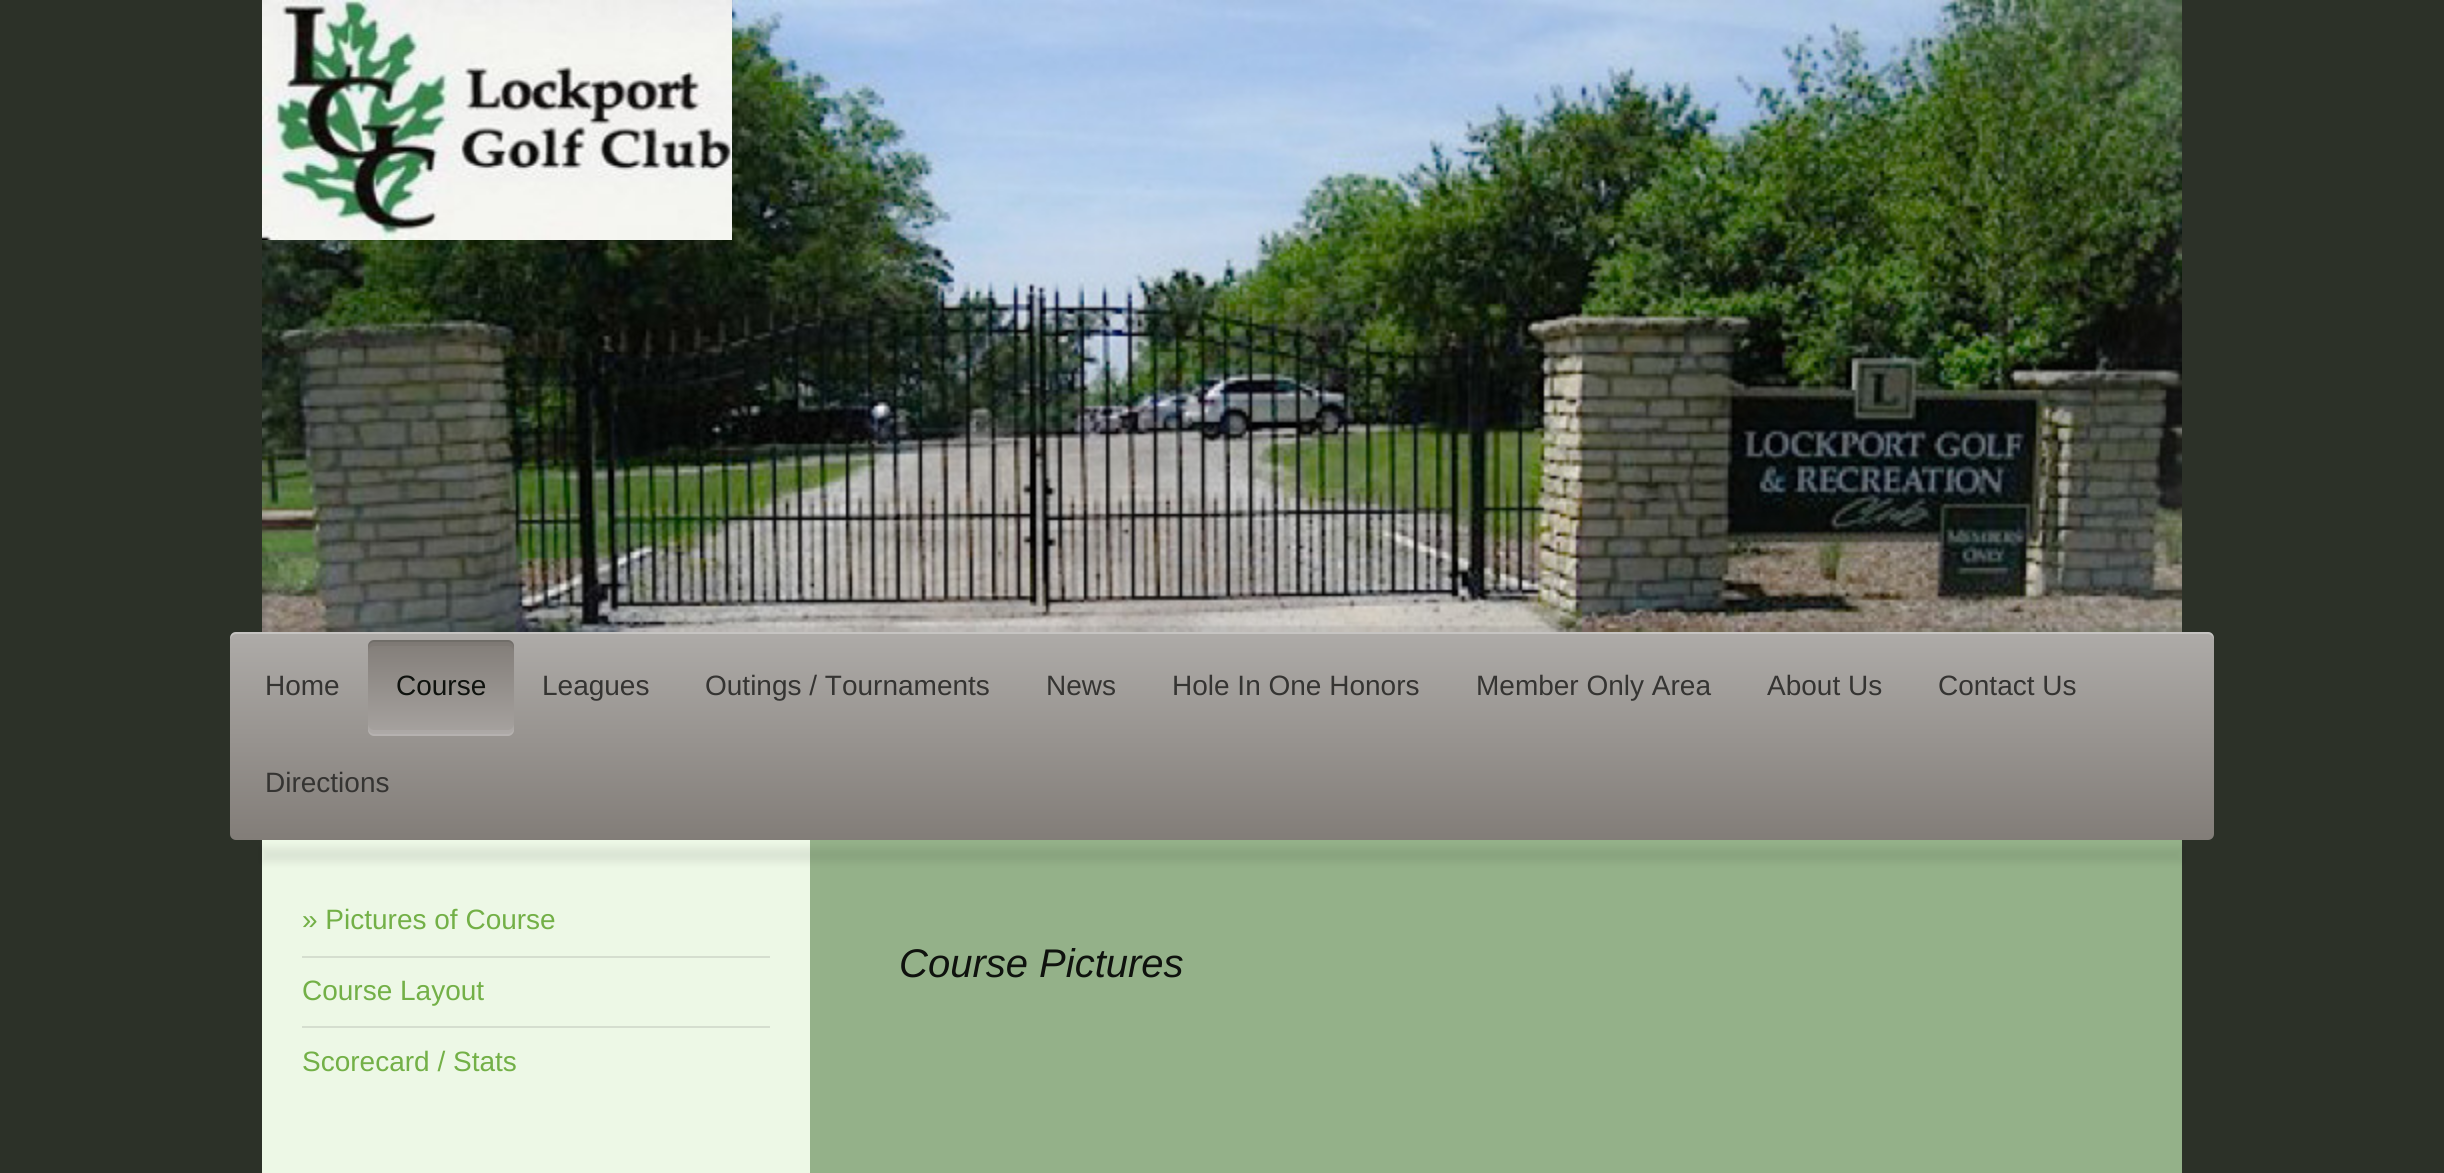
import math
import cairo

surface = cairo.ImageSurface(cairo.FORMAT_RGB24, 2444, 1173)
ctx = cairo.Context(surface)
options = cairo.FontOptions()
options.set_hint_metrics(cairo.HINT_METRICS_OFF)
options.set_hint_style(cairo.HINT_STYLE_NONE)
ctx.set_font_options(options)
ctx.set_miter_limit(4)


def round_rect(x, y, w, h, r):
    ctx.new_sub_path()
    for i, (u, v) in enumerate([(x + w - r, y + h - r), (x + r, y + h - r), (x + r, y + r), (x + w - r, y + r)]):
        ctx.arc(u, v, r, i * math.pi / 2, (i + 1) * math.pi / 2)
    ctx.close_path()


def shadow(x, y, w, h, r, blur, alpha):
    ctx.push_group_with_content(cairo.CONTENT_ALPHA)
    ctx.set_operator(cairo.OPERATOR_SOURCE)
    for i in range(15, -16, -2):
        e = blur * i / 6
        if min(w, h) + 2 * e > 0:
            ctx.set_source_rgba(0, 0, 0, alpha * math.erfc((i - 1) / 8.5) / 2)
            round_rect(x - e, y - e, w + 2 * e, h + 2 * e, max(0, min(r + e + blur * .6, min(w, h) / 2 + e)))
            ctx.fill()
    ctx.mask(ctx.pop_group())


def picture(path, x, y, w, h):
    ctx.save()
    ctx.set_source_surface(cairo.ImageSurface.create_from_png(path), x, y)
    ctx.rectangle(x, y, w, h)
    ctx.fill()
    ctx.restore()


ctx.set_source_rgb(0.173, 0.192, 0.157)
ctx.paint()
picture("img1.png", 262, 0, 1920, 632)
picture("img2.png", 262, 0, 470, 240)
ctx.set_source_rgb(0, 0, 0)
shadow(262, 626, 1920, 144, 0, 1, 0.08)
gradient = cairo.LinearGradient(230, 632, 230, 840)
gradient.add_color_stop_rgba(0, 0.682, 0.671, 0.659, 1)
gradient.add_color_stop_rgba(1, 0.51, 0.49, 0.471, 1)
ctx.set_source(gradient)
round_rect(230, 632, 1984, 208, 6)
ctx.fill()
ctx.set_source_rgba(1, 1, 1, 0.3)
ctx.new_path()
ctx.move_to(236, 634)
ctx.line_to(2208, 634)
ctx.curve_to(2211, 634, 2214, 637, 2214, 640)
ctx.curve_to(2214, 636, 2213, 632, 2208, 632)
ctx.line_to(236, 632)
ctx.curve_to(231, 632, 230, 636, 230, 640)
ctx.curve_to(230, 637, 233, 634, 236, 634)
ctx.close_path()
ctx.fill()
ctx.select_font_face("Liberation Sans")
ctx.set_font_size(28)
ctx.set_source_rgb(0.208, 0.204, 0.196)
ctx.move_to(265, 695)
ctx.show_text("Home")
gradient = cairo.LinearGradient(368, 736, 368, 640)
gradient.add_color_stop_rgba(0, 0.655, 0.639, 0.627, 1)
gradient.add_color_stop_rgba(1, 0.51, 0.49, 0.471, 1)
ctx.set_source(gradient)
round_rect(368, 640, 146, 96, 6)
ctx.fill()
ctx.set_source_rgba(0, 0, 0, 0.1)
ctx.new_path()
ctx.move_to(374, 642)
ctx.line_to(508, 642)
ctx.curve_to(511, 642, 514, 645, 514, 648)
ctx.line_to(514, 646)
ctx.curve_to(514, 643, 511, 640, 508, 640)
ctx.line_to(374, 640)
ctx.curve_to(371, 640, 368, 643, 368, 646)
ctx.line_to(368, 648)
ctx.curve_to(368, 645, 371, 642, 374, 642)
ctx.close_path()
ctx.fill()
ctx.set_source_rgba(0, 0, 0, 0.04)
ctx.new_path()
ctx.move_to(374, 646)
ctx.line_to(508, 646)
ctx.curve_to(511, 646, 514, 649, 514, 652)
ctx.line_to(514, 646)
ctx.curve_to(514, 643, 511, 640, 508, 640)
ctx.line_to(374, 640)
ctx.curve_to(371, 640, 368, 643, 368, 646)
ctx.line_to(368, 652)
ctx.curve_to(368, 649, 371, 646, 374, 646)
ctx.close_path()
ctx.fill()
ctx.set_source_rgba(1, 1, 1, 0.08)
ctx.new_path()
ctx.move_to(368, 724)
ctx.line_to(368, 730)
ctx.curve_to(368, 733, 371, 736, 374, 736)
ctx.line_to(508, 736)
ctx.curve_to(511, 736, 514, 733, 514, 730)
ctx.line_to(514, 724)
ctx.curve_to(514, 727, 511, 730, 508, 730)
ctx.line_to(374, 730)
ctx.curve_to(371, 730, 368, 727, 368, 724)
ctx.close_path()
ctx.fill()
ctx.set_source_rgba(1, 1, 1, 0.1)
ctx.new_path()
ctx.move_to(368, 728)
ctx.line_to(368, 730)
ctx.curve_to(368, 733, 371, 736, 374, 736)
ctx.line_to(508, 736)
ctx.curve_to(511, 736, 514, 733, 514, 730)
ctx.line_to(514, 728)
ctx.curve_to(514, 731, 511, 734, 508, 734)
ctx.line_to(374, 734)
ctx.curve_to(371, 734, 368, 731, 368, 728)
ctx.close_path()
ctx.fill()
ctx.set_source_rgb(0.059, 0.071, 0.055)
ctx.move_to(396, 695)
ctx.show_text("Course")
ctx.set_source_rgb(0.208, 0.204, 0.196)
ctx.move_to(542, 695)
ctx.show_text("Leagues")
ctx.move_to(705, 695)
ctx.show_text("Outings / Tournaments")
ctx.move_to(1046, 695)
ctx.show_text("News")
ctx.move_to(1172, 695)
ctx.show_text("Hole In One Honors")
ctx.move_to(1476, 695)
ctx.show_text("Member Only Area")
ctx.move_to(1767, 695)
ctx.show_text("About Us")
ctx.move_to(1938, 695)
ctx.show_text("Contact Us")
ctx.move_to(265, 792)
ctx.show_text("Directions")
ctx.set_source_rgb(0.58, 0.694, 0.537)
ctx.rectangle(810, 840, 1372, 333)
ctx.fill()
ctx.set_source_rgb(0.929, 0.969, 0.902)
ctx.rectangle(262, 840, 548, 333)
ctx.fill()
ctx.set_source_rgb(0, 0, 0)
shadow(262, 848, 1920, 14, 0, 4, 0.08)
ctx.set_source_rgb(0.835, 0.871, 0.812)
ctx.rectangle(302, 956, 468, 2)
ctx.fill()
ctx.set_source_rgb(0.451, 0.69, 0.278)
ctx.move_to(302, 929)
ctx.show_text("» Pictures of Course")
ctx.set_source_rgb(0.835, 0.871, 0.812)
ctx.rectangle(302, 1026, 468, 2)
ctx.fill()
ctx.set_source_rgb(0.451, 0.69, 0.278)
ctx.move_to(302, 1000)
ctx.show_text("Course Layout")
ctx.move_to(302, 1071)
ctx.show_text("Scorecard / Stats")
ctx.select_font_face("Liberation Sans", cairo.FONT_SLANT_ITALIC)
ctx.set_font_size(40)
ctx.set_source_rgb(0.059, 0.071, 0.055)
ctx.move_to(899, 977)
ctx.show_text("Course Pictures")
surface.write_to_png("page.png")
